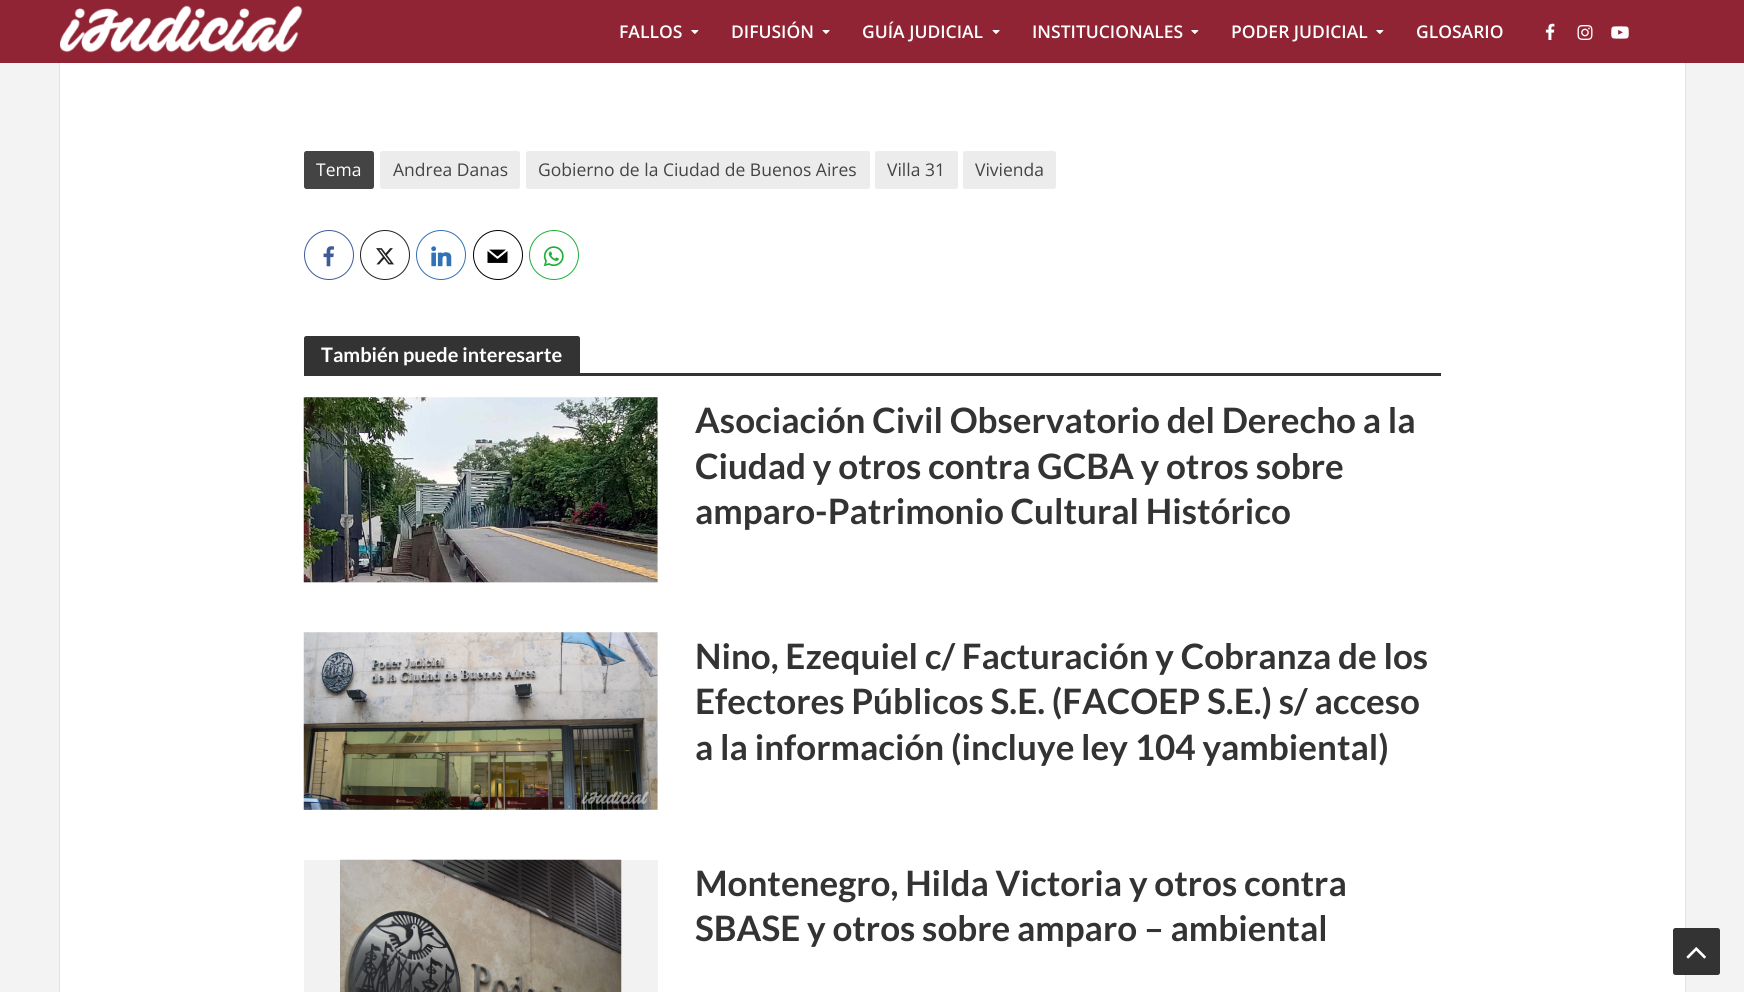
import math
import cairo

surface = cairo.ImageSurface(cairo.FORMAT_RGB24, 1744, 992)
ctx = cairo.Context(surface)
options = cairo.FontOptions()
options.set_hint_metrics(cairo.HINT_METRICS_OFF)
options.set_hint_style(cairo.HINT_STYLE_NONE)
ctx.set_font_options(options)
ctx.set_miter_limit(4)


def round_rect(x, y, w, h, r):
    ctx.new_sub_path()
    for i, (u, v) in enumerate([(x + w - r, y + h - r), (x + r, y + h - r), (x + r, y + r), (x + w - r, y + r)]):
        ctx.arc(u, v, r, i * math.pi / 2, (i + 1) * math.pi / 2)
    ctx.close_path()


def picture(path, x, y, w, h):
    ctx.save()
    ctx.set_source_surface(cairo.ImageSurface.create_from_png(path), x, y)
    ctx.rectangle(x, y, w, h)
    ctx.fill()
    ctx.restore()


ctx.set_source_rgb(0.953, 0.953, 0.953)
ctx.paint()
ctx.rectangle(59.5, -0.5, 1626, 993)
ctx.set_source_rgb(0.886, 0.886, 0.886)
ctx.set_line_width(1)
ctx.stroke()
ctx.set_source_rgb(0.565, 0.141, 0.204)
ctx.rectangle(0, 0, 1744, 63)
ctx.fill()
picture("img1.png", 60, 5, 243, 48)
ctx.select_font_face("Open Sans SemiBold")
ctx.set_font_size(17.5)
ctx.set_source_rgb(1, 1, 1)
ctx.move_to(619, 38)
ctx.show_text("FALLOS")
picture("img2.png", 691, 30, 8, 4)
ctx.move_to(731, 38)
ctx.show_text("DIFUSIÓN")
picture("img3.png", 822, 30, 8, 4)
ctx.move_to(862, 38)
ctx.show_text("GUÍA JUDICIAL")
picture("img3.png", 992, 30, 8, 4)
ctx.move_to(1032, 38)
ctx.show_text("INSTITUCIONALES")
picture("img2.png", 1191, 30, 8, 4)
ctx.move_to(1231, 38)
ctx.show_text("PODER JUDICIAL")
picture("img2.png", 1376, 30, 8, 4)
ctx.move_to(1416, 38)
ctx.show_text("GLOSARIO")
picture("img4.png", 1545, 23, 10, 17)
picture("img5.png", 1577, 25, 16, 15)
picture("img6.png", 1611, 26, 18, 13)
ctx.rectangle(60, 63, 1625, 929)
ctx.fill()
ctx.set_source_rgb(0.267, 0.267, 0.267)
round_rect(304, 151, 70, 38, 2.5)
ctx.fill()
ctx.select_font_face("Open Sans")
ctx.set_source_rgb(1, 1, 1)
ctx.move_to(316, 176)
ctx.show_text("Tema")
ctx.set_source_rgb(0.922, 0.922, 0.922)
round_rect(380, 151, 140, 38, 2.5)
ctx.fill()
ctx.set_source_rgb(0.267, 0.267, 0.267)
ctx.move_to(393, 176)
ctx.show_text("Andrea Danas")
ctx.set_source_rgb(0.922, 0.922, 0.922)
round_rect(526, 151, 344, 38, 2.5)
ctx.fill()
ctx.set_source_rgb(0.267, 0.267, 0.267)
ctx.move_to(538, 176)
ctx.show_text("Gobierno de la Ciudad de Buenos Aires")
ctx.set_source_rgb(0.922, 0.922, 0.922)
round_rect(875, 151, 83, 38, 2.5)
ctx.fill()
ctx.set_source_rgb(0.267, 0.267, 0.267)
ctx.move_to(887, 176)
ctx.show_text("Villa 31")
ctx.set_source_rgb(0.922, 0.922, 0.922)
round_rect(963, 151, 93, 38, 2.5)
ctx.fill()
ctx.set_source_rgb(0.267, 0.267, 0.267)
ctx.move_to(975, 176)
ctx.show_text("Vivienda")
ctx.new_path()
ctx.arc(329, 255, 24.5, 0, 2 * math.pi)
ctx.set_source_rgb(0.243, 0.357, 0.596)
ctx.stroke()
picture("img7.png", 323, 246, 11, 21)
ctx.arc(385, 255, 24.5, 0, 2 * math.pi)
ctx.set_source_rgb(0.133, 0.133, 0.133)
ctx.stroke()
picture("img8.png", 376, 248, 18, 17)
ctx.arc(441, 255, 24.5, 0, 2 * math.pi)
ctx.set_source_rgb(0.2, 0.443, 0.718)
ctx.stroke()
picture("img9.png", 431, 246, 21, 21)
ctx.arc(498, 255, 24.5, 0, 2 * math.pi)
ctx.set_source_rgb(0, 0, 0)
ctx.stroke()
picture("img10.png", 487, 249, 21, 14)
ctx.arc(554, 255, 24.5, 0, 2 * math.pi)
ctx.set_source_rgb(0.125, 0.69, 0.22)
ctx.stroke()
picture("img11.png", 543, 246, 21, 21)
ctx.set_source_rgb(0.2, 0.2, 0.2)
ctx.new_path()
ctx.move_to(306.5, 336)
ctx.line_to(577.5, 336)
ctx.curve_to(579, 336, 580, 337, 580, 338.5)
ctx.line_to(580, 373)
ctx.line_to(304, 373)
ctx.line_to(304, 338.5)
ctx.curve_to(304, 337, 305, 336, 306.5, 336)
ctx.close_path()
ctx.fill()
ctx.select_font_face("Lato", cairo.FONT_SLANT_NORMAL, cairo.FONT_WEIGHT_BOLD)
ctx.set_font_size(20)
ctx.set_source_rgb(1, 1, 1)
ctx.move_to(321, 362)
ctx.show_text("También puede interesarte")
ctx.set_source_rgb(0.2, 0.2, 0.2)
ctx.rectangle(304, 373, 1137, 3)
ctx.fill()
ctx.set_source_rgb(0.949, 0.949, 0.949)
ctx.rectangle(304, 398, 354, 185)
ctx.fill()
picture("img12.png", 303, 397, 355, 186)
ctx.set_font_size(35)
ctx.set_source_rgb(0.2, 0.2, 0.2)
ctx.move_to(695, 433)
ctx.show_text("Asociación Civil Observatorio del Derecho a la")
ctx.move_to(695, 479)
ctx.show_text("Ciudad y otros contra GCBA y otros sobre")
ctx.move_to(695, 524)
ctx.show_text("amparo-Patrimonio Cultural Histórico")
ctx.set_source_rgb(0.949, 0.949, 0.949)
ctx.rectangle(304, 633, 354, 177)
ctx.fill()
picture("img13.png", 303, 632, 355, 178)
ctx.set_source_rgb(0.2, 0.2, 0.2)
ctx.move_to(695, 669)
ctx.show_text("Nino, Ezequiel c/ Facturación y Cobranza de los")
ctx.move_to(695, 714)
ctx.show_text("Efectores Públicos S.E. (FACOEP S.E.) s/ acceso")
ctx.move_to(695, 760)
ctx.show_text("a la información (incluye ley 104 yambiental)")
ctx.set_source_rgb(0.949, 0.949, 0.949)
ctx.rectangle(304, 860, 354, 132)
ctx.fill()
picture("img14.png", 340, 859, 282, 133)
ctx.set_source_rgb(0.2, 0.2, 0.2)
ctx.move_to(695, 896)
ctx.show_text("Montenegro, Hilda Victoria y otros contra")
ctx.move_to(695, 941)
ctx.show_text("SBASE y otros sobre amparo – ambiental")
round_rect(1673, 928, 47, 47, 2.5)
ctx.fill()
picture("img15.png", 1686, 947, 20, 12)
surface.write_to_png("page.png")
